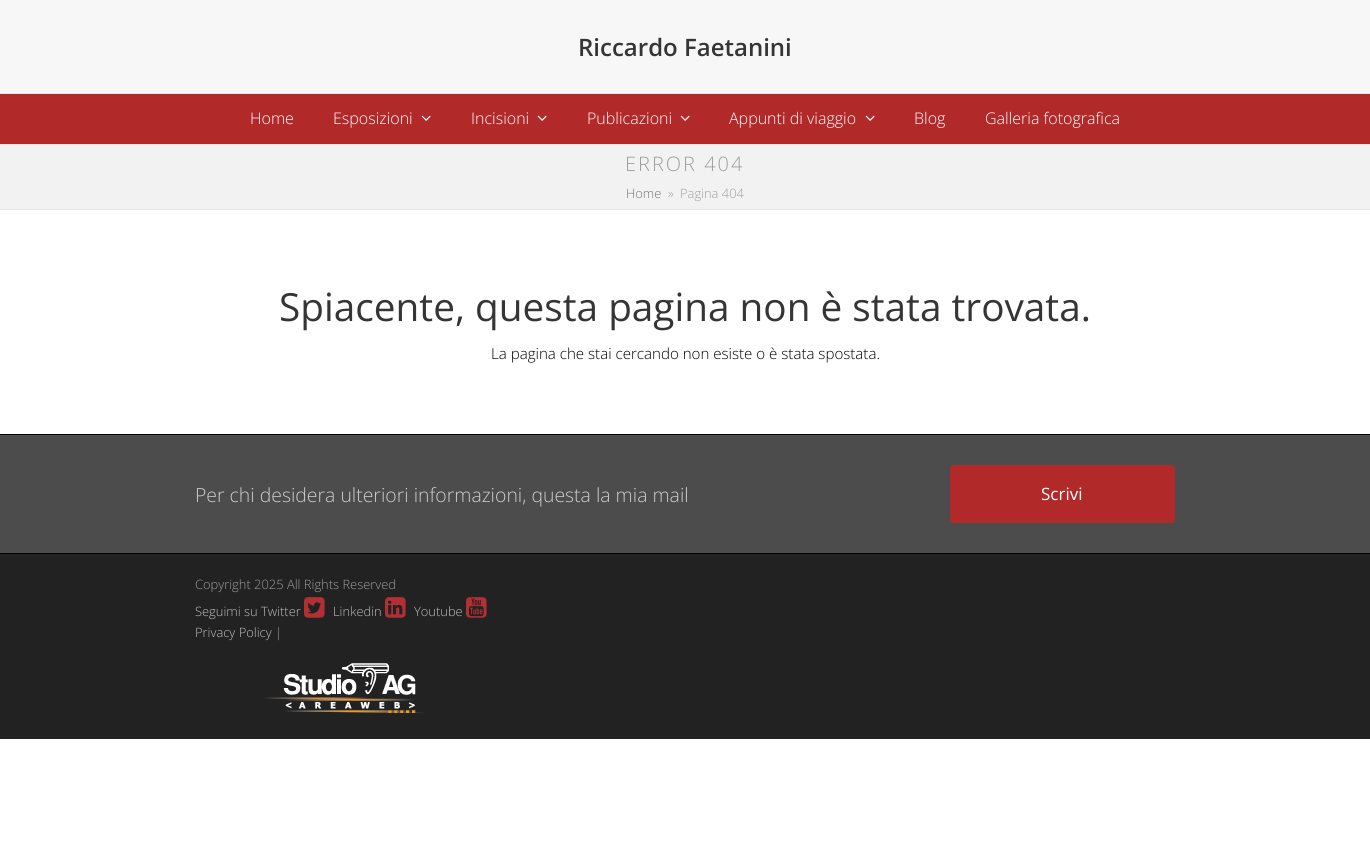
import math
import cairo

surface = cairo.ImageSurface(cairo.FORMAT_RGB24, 1370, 863)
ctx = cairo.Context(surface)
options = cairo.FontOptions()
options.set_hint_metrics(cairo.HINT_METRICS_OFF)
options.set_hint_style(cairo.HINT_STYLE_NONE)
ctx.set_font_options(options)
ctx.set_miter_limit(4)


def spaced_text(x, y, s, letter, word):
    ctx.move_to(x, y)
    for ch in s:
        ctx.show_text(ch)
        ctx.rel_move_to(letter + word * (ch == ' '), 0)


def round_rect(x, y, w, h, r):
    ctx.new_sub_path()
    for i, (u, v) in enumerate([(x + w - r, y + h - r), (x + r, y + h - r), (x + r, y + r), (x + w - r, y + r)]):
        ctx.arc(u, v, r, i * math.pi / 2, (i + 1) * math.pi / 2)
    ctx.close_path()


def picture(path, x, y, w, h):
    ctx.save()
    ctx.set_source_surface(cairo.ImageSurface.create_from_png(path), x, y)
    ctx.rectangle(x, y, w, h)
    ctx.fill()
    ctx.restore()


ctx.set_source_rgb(1, 1, 1)
ctx.paint()
ctx.set_source_rgb(0.965, 0.965, 0.965)
ctx.rectangle(0, 0, 1370, 93)
ctx.fill()
ctx.select_font_face("Open Sans SemiBold")
ctx.set_font_size(24)
ctx.set_source_rgb(0.208, 0.208, 0.208)
ctx.move_to(578, 56)
ctx.show_text("Riccardo Faetanini")
ctx.set_source_rgb(0.698, 0.161, 0.161)
ctx.rectangle(0, 94, 1370, 50)
ctx.fill()
ctx.set_source_rgb(0.898, 0.898, 0.898)
ctx.rectangle(0, 93, 1370, 1)
ctx.fill()
ctx.select_font_face("Open Sans Light")
ctx.set_font_size(16)
ctx.set_source_rgb(1, 1, 1)
ctx.move_to(250, 124)
ctx.show_text("Home")
ctx.move_to(333, 124)
ctx.show_text("Esposizioni")
picture("img1.png", 421, 115, 10, 6)
ctx.move_to(471, 124)
ctx.show_text("Incisioni")
picture("img1.png", 537, 115, 10, 6)
ctx.move_to(587, 124)
ctx.show_text("Publicazioni")
picture("img1.png", 680, 115, 10, 6)
ctx.move_to(729, 124)
ctx.show_text("Appunti di viaggio")
picture("img1.png", 865, 115, 10, 6)
ctx.move_to(914, 124)
ctx.show_text("Blog")
ctx.move_to(985, 124)
ctx.show_text("Galleria fotografica")
ctx.set_source_rgb(0.949, 0.949, 0.949)
ctx.rectangle(0, 145, 1370, 64)
ctx.fill()
ctx.set_source_rgb(0.898, 0.898, 0.898)
ctx.rectangle(0, 144, 1370, 1)
ctx.fill()
ctx.rectangle(0, 209, 1370, 1)
ctx.fill()
ctx.set_font_size(20)
ctx.set_source_rgb(0.62, 0.62, 0.62)
spaced_text(625, 171, "ERROR 404", 2, 0)
ctx.set_font_size(12.9)
ctx.set_source_rgb(0.459, 0.459, 0.459)
ctx.move_to(626, 198)
ctx.show_text("Home")
ctx.set_source_rgb(0.62, 0.62, 0.62)
ctx.move_to(668, 198)
ctx.show_text("»")
ctx.move_to(680, 198)
ctx.show_text("Pagina 404")
ctx.select_font_face("Open Sans")
ctx.set_font_size(38.75)
ctx.set_source_rgb(0.208, 0.208, 0.208)
ctx.move_to(279, 321)
ctx.show_text("Spiacente, questa pagina non è stata trovata.")
ctx.select_font_face("Open Sans Light")
ctx.set_font_size(15.1)
ctx.set_source_rgb(0, 0, 0)
ctx.move_to(491, 359)
ctx.show_text("La pagina che stai cercando non esiste o è stata spostata.")
ctx.set_source_rgb(0.298, 0.298, 0.298)
ctx.rectangle(0, 435, 1370, 118)
ctx.fill()
ctx.set_source_rgb(0, 0, 0)
ctx.rectangle(0, 434, 1370, 1)
ctx.fill()
ctx.rectangle(0, 553, 1370, 1)
ctx.fill()
ctx.set_font_size(19.4)
ctx.set_source_rgb(0.8, 0.8, 0.8)
ctx.move_to(195, 502)
ctx.show_text("Per chi desidera ulteriori informazioni, questa la mia mail")
ctx.set_source_rgb(0.698, 0.161, 0.161)
round_rect(950, 465, 225, 58, 4)
ctx.fill()
ctx.select_font_face("Open Sans")
ctx.set_font_size(17)
ctx.set_source_rgb(1, 1, 1)
ctx.move_to(1041, 500)
ctx.show_text("Scrivi")
ctx.set_source_rgb(0.133, 0.133, 0.133)
ctx.rectangle(0, 554, 1370, 185)
ctx.fill()
ctx.select_font_face("Open Sans Light")
ctx.set_font_size(12.9)
ctx.set_source_rgb(0.62, 0.62, 0.62)
ctx.move_to(195, 589)
ctx.show_text("Copyright 2025 All Rights Reserved")
ctx.set_source_rgb(0.741, 0.741, 0.741)
ctx.move_to(195, 616)
ctx.show_text("Seguimi su Twitter")
picture("img2.png", 304, 597, 21, 21)
ctx.move_to(333, 616)
ctx.show_text("Linkedin")
picture("img3.png", 385, 597, 21, 21)
ctx.move_to(414, 616)
ctx.show_text("Youtube")
picture("img4.png", 466, 597, 21, 21)
ctx.move_to(195, 637)
ctx.show_text("Privacy Policy")
ctx.set_source_rgb(0.62, 0.62, 0.62)
ctx.move_to(275, 637)
ctx.show_text("|")
picture("img5.png", 265, 663, 159, 50)
surface.write_to_png("page.png")
